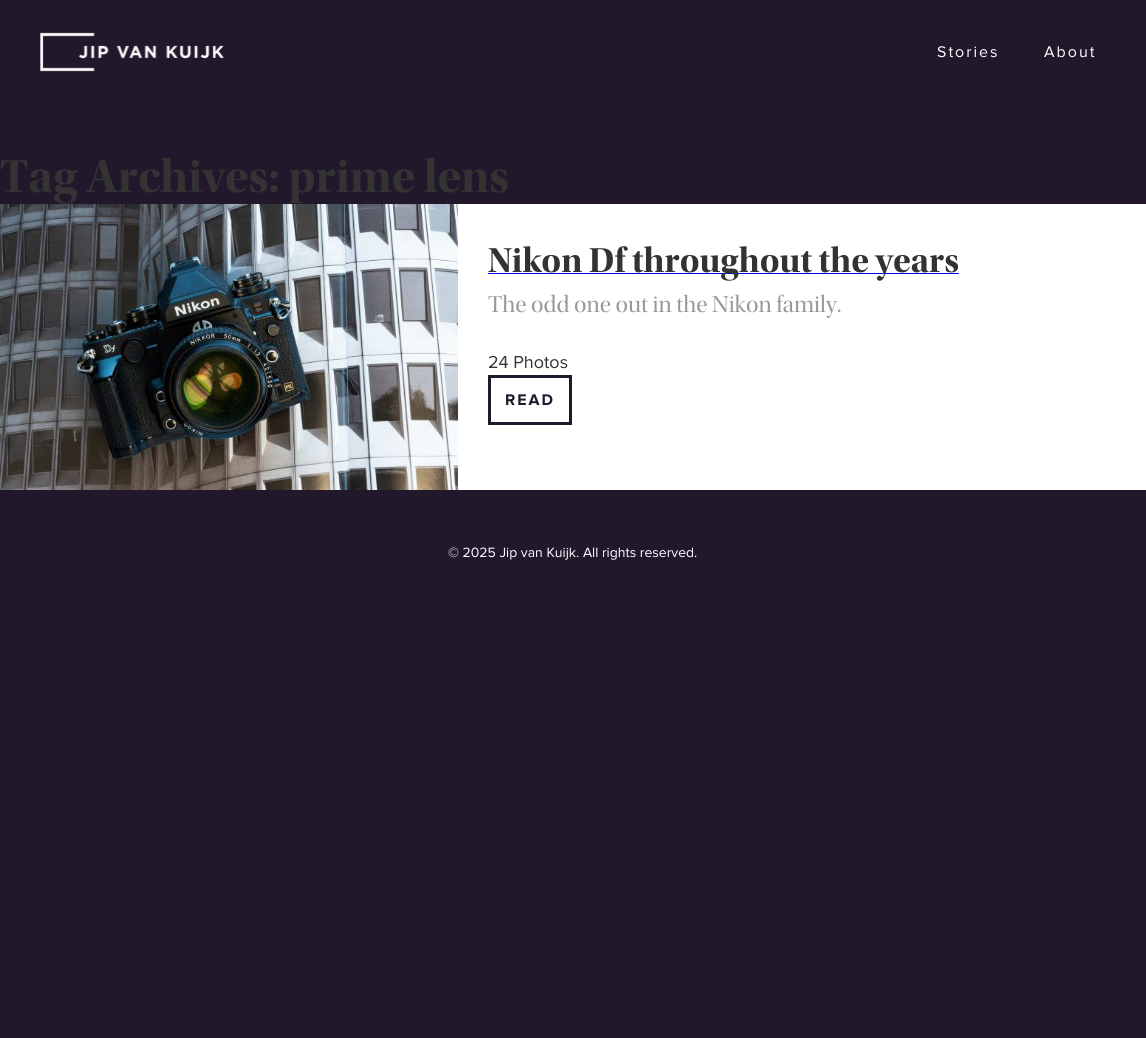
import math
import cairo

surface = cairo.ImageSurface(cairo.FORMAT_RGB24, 1146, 1038)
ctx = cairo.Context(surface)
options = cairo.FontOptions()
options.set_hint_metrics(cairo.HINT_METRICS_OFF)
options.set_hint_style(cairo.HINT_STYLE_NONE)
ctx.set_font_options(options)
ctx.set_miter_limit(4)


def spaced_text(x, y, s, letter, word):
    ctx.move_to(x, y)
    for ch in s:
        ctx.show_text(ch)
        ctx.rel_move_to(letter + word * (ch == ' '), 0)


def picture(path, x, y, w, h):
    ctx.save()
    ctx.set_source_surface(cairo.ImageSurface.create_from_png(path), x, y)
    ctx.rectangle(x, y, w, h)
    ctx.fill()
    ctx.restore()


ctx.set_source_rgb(0.129, 0.094, 0.173)
ctx.paint()
picture("img1.png", 40, 32, 184, 40)
ctx.select_font_face("Proxima Nova")
ctx.set_font_size(16)
ctx.set_source_rgb(1, 1, 1)
spaced_text(937, 57, "Stories", 2, 0)
spaced_text(1044, 57, "About", 2, 0)
ctx.select_font_face("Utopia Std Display", cairo.FONT_SLANT_NORMAL, cairo.FONT_WEIGHT_BOLD)
ctx.set_font_size(48)
ctx.set_source_rgb(0.2, 0.2, 0.2)
ctx.move_to(0, 192)
ctx.show_text("Tag Archives: prime lens")
picture("img2.png", 0, 204, 458, 286)
ctx.set_source_rgb(1, 1, 1)
ctx.rectangle(458, 204, 688, 286)
ctx.fill()
ctx.set_source_rgb(0, 0, 0.933)
ctx.rectangle(488, 273, 471, 1)
ctx.fill()
ctx.set_font_size(36)
ctx.set_source_rgb(0.2, 0.2, 0.2)
ctx.move_to(488, 272)
ctx.show_text("Nikon Df throughout the years")
ctx.select_font_face("Utopia Std Display")
ctx.set_font_size(24)
ctx.set_source_rgb(0.6, 0.6, 0.6)
ctx.move_to(488, 312)
ctx.show_text("The odd one out in the Nikon family.")
ctx.select_font_face("Proxima Nova")
ctx.set_font_size(18)
ctx.set_source_rgb(0.2, 0.2, 0.2)
ctx.move_to(488, 368)
ctx.show_text("24 Photos")
ctx.rectangle(489.5, 376.5, 81, 47)
ctx.set_source_rgb(0.129, 0.094, 0.173)
ctx.set_line_width(3)
ctx.stroke()
ctx.select_font_face("Proxima Nova", cairo.FONT_SLANT_NORMAL, cairo.FONT_WEIGHT_BOLD)
ctx.set_font_size(16)
spaced_text(505, 405, "READ", 2, 0)
ctx.select_font_face("Proxima Nova")
ctx.set_font_size(14)
ctx.set_source_rgb(1, 1, 1)
ctx.move_to(448, 557)
ctx.show_text("© 2025 Jip van Kuijk. All rights reserved.")
surface.write_to_png("page.png")
